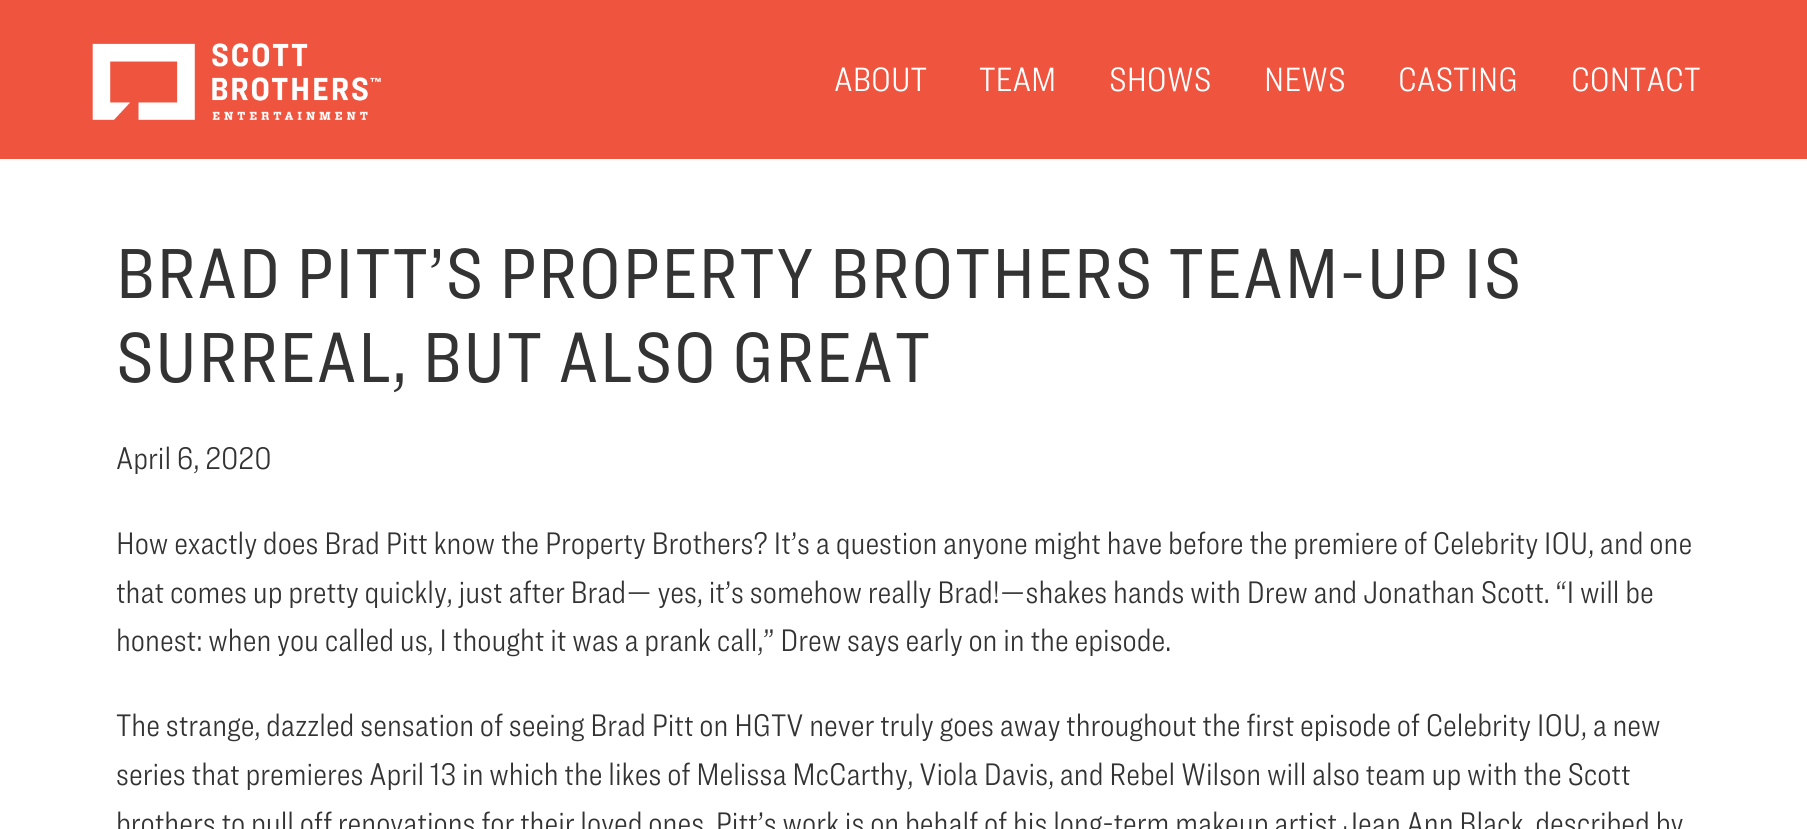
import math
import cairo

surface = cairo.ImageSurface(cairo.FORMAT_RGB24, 1807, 829)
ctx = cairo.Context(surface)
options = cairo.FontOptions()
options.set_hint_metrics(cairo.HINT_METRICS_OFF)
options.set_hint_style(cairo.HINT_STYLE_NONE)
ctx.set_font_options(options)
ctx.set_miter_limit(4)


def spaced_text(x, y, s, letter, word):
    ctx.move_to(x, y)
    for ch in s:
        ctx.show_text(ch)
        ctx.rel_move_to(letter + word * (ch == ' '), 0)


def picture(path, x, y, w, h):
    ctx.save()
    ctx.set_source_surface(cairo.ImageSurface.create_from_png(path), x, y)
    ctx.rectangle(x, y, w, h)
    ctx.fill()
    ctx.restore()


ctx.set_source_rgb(1, 1, 1)
ctx.paint()
ctx.set_source_rgb(0.937, 0.329, 0.247)
ctx.rectangle(0, 0, 1807, 159)
ctx.fill()
picture("img1.png", 92, 43, 289, 77)
ctx.select_font_face("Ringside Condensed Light")
ctx.set_font_size(35)
ctx.set_source_rgb(1, 1, 1)
ctx.move_to(834, 91)
ctx.show_text("ABOUT")
ctx.move_to(979, 91)
ctx.show_text("TEAM")
ctx.move_to(1109, 91)
ctx.show_text("SHOWS")
ctx.move_to(1264, 91)
ctx.show_text("NEWS")
ctx.move_to(1398, 91)
ctx.show_text("CASTING")
ctx.move_to(1571, 91)
ctx.show_text("CONTACT")
ctx.select_font_face("Ringside Condensed")
ctx.set_font_size(73.5)
ctx.set_source_rgb(0.2, 0.2, 0.2)
spaced_text(116, 298, "BRAD PITT’S PROPERTY BROTHERS TEAM-UP IS", 1.75, 0)
spaced_text(116, 382, "SURREAL, BUT ALSO GREAT", 1.75, 0)
ctx.select_font_face("Ringside Condensed Light")
ctx.set_font_size(32.4)
ctx.move_to(116, 469)
ctx.show_text("April 6, 2020")
ctx.move_to(116, 554)
ctx.show_text("How exactly does Brad Pitt know the Property Brothers? It’s a question anyone might have before the premiere of Celebrity IOU, and one")
ctx.move_to(116, 603)
ctx.show_text("that comes up pretty quickly, just after Brad— yes, it’s somehow really Brad!—shakes hands with Drew and Jonathan Scott. “I will be")
ctx.move_to(116, 651)
ctx.show_text("honest: when you called us, I thought it was a prank call,” Drew says early on in the episode.")
ctx.move_to(116, 736)
ctx.show_text("The strange, dazzled sensation of seeing Brad Pitt on HGTV never truly goes away throughout the first episode of Celebrity IOU, a new")
ctx.move_to(116, 785)
ctx.show_text("series that premieres April 13 in which the likes of Melissa McCarthy, Viola Davis, and Rebel Wilson will also team up with the Scott")
ctx.move_to(116, 834)
ctx.show_text("brothers to pull off renovations for their loved ones. Pitt’s work is on behalf of his long-term makeup artist Jean Ann Black, described by")
surface.write_to_png("page.png")
